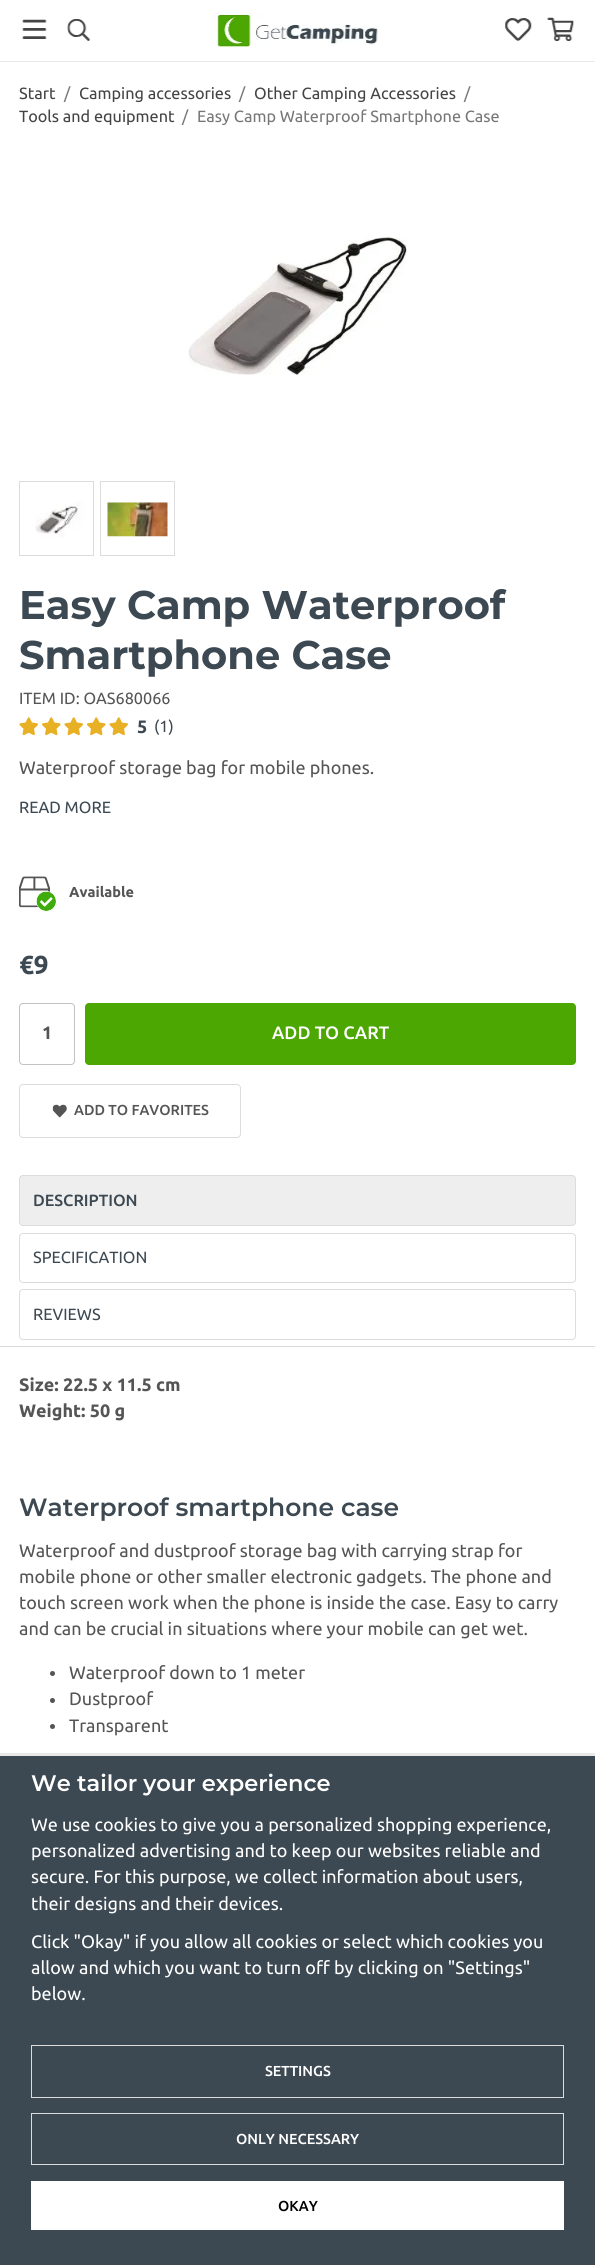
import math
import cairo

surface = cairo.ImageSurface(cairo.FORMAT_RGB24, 595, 2265)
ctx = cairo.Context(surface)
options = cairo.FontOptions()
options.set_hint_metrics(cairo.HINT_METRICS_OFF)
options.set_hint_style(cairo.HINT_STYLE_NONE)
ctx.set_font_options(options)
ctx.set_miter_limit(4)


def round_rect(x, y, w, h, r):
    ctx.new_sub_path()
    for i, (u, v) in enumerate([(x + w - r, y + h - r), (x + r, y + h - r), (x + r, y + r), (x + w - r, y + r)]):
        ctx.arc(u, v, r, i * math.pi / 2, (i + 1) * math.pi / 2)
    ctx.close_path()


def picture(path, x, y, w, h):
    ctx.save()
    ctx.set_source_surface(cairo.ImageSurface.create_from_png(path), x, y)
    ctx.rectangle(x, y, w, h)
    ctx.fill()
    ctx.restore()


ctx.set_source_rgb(1, 1, 1)
ctx.paint()
ctx.set_source_rgb(0.914, 0.914, 0.914)
ctx.rectangle(0, 61, 595, 1)
ctx.fill()
picture("img1.png", 22, 19, 25, 20)
picture("img2.png", 67, 19, 24, 22)
picture("img3.png", 214, 11, 164, 37)
picture("img4.png", 505, 18, 27, 23)
picture("img5.png", 547, 17, 27, 24)
ctx.select_font_face("Ubuntu")
ctx.set_font_size(16.25)
ctx.set_source_rgb(0.267, 0.267, 0.267)
ctx.move_to(19, 99)
ctx.show_text("Start")
ctx.set_source_rgb(0.467, 0.467, 0.467)
ctx.move_to(64, 99)
ctx.show_text("/")
ctx.set_source_rgb(0.267, 0.267, 0.267)
ctx.move_to(79, 99)
ctx.show_text("Camping accessories")
ctx.set_source_rgb(0.467, 0.467, 0.467)
ctx.move_to(239, 99)
ctx.show_text("/")
ctx.set_source_rgb(0.267, 0.267, 0.267)
ctx.move_to(254, 99)
ctx.show_text("Other Camping Accessories")
ctx.set_source_rgb(0.467, 0.467, 0.467)
ctx.move_to(464, 99)
ctx.show_text("/")
ctx.set_source_rgb(0.267, 0.267, 0.267)
ctx.move_to(19, 122)
ctx.show_text("Tools and equipment")
ctx.set_source_rgb(0.467, 0.467, 0.467)
ctx.move_to(182, 122)
ctx.show_text("/")
ctx.move_to(197, 122)
ctx.show_text("Easy Camp Waterproof Smartphone Case")
picture("img6.png", 188, 237, 219, 138)
ctx.rectangle(19.5, 481.5, 74, 74)
ctx.set_source_rgb(0.863, 0.863, 0.863)
ctx.set_line_width(1)
ctx.stroke()
picture("img7.png", 35, 501, 49, 37)
ctx.rectangle(100.5, 481.5, 74, 74)
ctx.stroke()
picture("img8.png", 107, 502, 61, 35)
ctx.select_font_face("Montserrat", cairo.FONT_SLANT_NORMAL, cairo.FONT_WEIGHT_BOLD)
ctx.set_font_size(40)
ctx.set_source_rgb(0.239, 0.286, 0.322)
ctx.move_to(19, 619)
ctx.show_text("Easy Camp Waterproof")
ctx.move_to(19, 669)
ctx.show_text("Smartphone Case")
ctx.select_font_face("Ubuntu")
ctx.set_font_size(16.25)
ctx.set_source_rgb(0.333, 0.333, 0.333)
ctx.move_to(19, 704)
ctx.show_text("ITEM ID: OAS680066")
picture("img9.png", 19, 717, 19, 19)
picture("img10.png", 42, 717, 19, 19)
picture("img9.png", 64, 717, 19, 19)
picture("img10.png", 87, 717, 19, 19)
picture("img9.png", 109, 717, 19, 19)
ctx.select_font_face("Ubuntu", cairo.FONT_SLANT_NORMAL, cairo.FONT_WEIGHT_BOLD)
ctx.set_font_size(18)
ctx.set_source_rgb(0.239, 0.286, 0.322)
ctx.move_to(137, 733)
ctx.show_text("5")
ctx.select_font_face("Ubuntu")
ctx.set_font_size(16.25)
ctx.move_to(154, 732)
ctx.show_text("(1)")
ctx.set_font_size(18)
ctx.set_source_rgb(0.333, 0.333, 0.333)
ctx.move_to(19, 774)
ctx.show_text("Waterproof storage bag for mobile phones.")
ctx.set_font_size(16.25)
ctx.set_source_rgb(0.239, 0.286, 0.322)
ctx.move_to(19, 813)
ctx.show_text("READ MORE")
picture("img11.png", 19, 876, 31, 32)
ctx.set_source_rgb(1, 1, 1)
ctx.arc(46, 901, 10, 0, 2 * math.pi)
ctx.fill()
picture("img12.png", 36, 891, 20, 20)
ctx.select_font_face("Ubuntu", cairo.FONT_SLANT_NORMAL, cairo.FONT_WEIGHT_BOLD)
ctx.set_font_size(14.5)
ctx.set_source_rgb(0.333, 0.333, 0.333)
ctx.move_to(69, 897)
ctx.show_text("Available")
ctx.set_font_size(26)
ctx.set_source_rgb(0.239, 0.286, 0.322)
ctx.move_to(19, 974)
ctx.show_text("€9")
round_rect(19.5, 1003.5, 55, 61, 3.5)
ctx.set_source_rgb(0.761, 0.761, 0.761)
ctx.stroke()
ctx.set_font_size(18)
ctx.set_source_rgb(0.333, 0.333, 0.333)
ctx.move_to(42, 1039)
ctx.show_text("1")
ctx.set_source_rgb(0.298, 0.655, 0.008)
round_rect(85, 1003, 491, 62, 4)
ctx.fill()
ctx.select_font_face("Ubuntu Medium")
ctx.set_source_rgb(1, 1, 1)
ctx.move_to(272, 1039)
ctx.show_text("ADD TO CART")
round_rect(19.5, 1084.5, 221, 53, 3.5)
ctx.set_source_rgb(0.863, 0.863, 0.863)
ctx.stroke()
picture("img13.png", 52, 1104, 15, 14)
ctx.set_font_size(14.5)
ctx.set_source_rgb(0.333, 0.333, 0.333)
ctx.move_to(74, 1115)
ctx.show_text("ADD TO FAVORITES")
ctx.set_source_rgb(0.863, 0.863, 0.863)
ctx.rectangle(0, 1346, 595, 1)
ctx.fill()
ctx.set_source_rgb(0.933, 0.933, 0.933)
round_rect(19.5, 1175.5, 556, 50, 3.5)
ctx.fill_preserve()
ctx.set_source_rgb(0.863, 0.863, 0.863)
ctx.stroke()
ctx.set_font_size(16.25)
ctx.set_source_rgb(0.239, 0.286, 0.322)
ctx.move_to(33, 1206)
ctx.show_text("DESCRIPTION")
round_rect(19.5, 1233.5, 556, 49, 3.5)
ctx.set_source_rgb(0.863, 0.863, 0.863)
ctx.stroke()
ctx.select_font_face("Ubuntu")
ctx.set_source_rgb(0.239, 0.286, 0.322)
ctx.move_to(33, 1263)
ctx.show_text("SPECIFICATION")
round_rect(19.5, 1289.5, 556, 50, 3.5)
ctx.set_source_rgb(0.863, 0.863, 0.863)
ctx.stroke()
ctx.set_source_rgb(0.239, 0.286, 0.322)
ctx.move_to(33, 1320)
ctx.show_text("REVIEWS")
ctx.select_font_face("Ubuntu", cairo.FONT_SLANT_NORMAL, cairo.FONT_WEIGHT_BOLD)
ctx.set_font_size(18)
ctx.set_source_rgb(0.333, 0.333, 0.333)
ctx.move_to(19, 1391)
ctx.show_text("Size: 22.5 x 11.5 cm")
ctx.move_to(19, 1417)
ctx.show_text("Weight: 50 g")
ctx.select_font_face("Montserrat SemiBold")
ctx.set_font_size(25)
ctx.set_source_rgb(0.239, 0.286, 0.322)
ctx.move_to(19, 1516)
ctx.show_text("Waterproof smartphone case")
ctx.select_font_face("Ubuntu")
ctx.set_font_size(18)
ctx.set_source_rgb(0.333, 0.333, 0.333)
ctx.move_to(19, 1557)
ctx.show_text("Waterproof and dustproof storage bag with carrying strap for")
ctx.move_to(19, 1583)
ctx.show_text("mobile phone or other smaller electronic gadgets. The phone and")
ctx.move_to(19, 1609)
ctx.show_text("touch screen work when the phone is inside the case. Easy to carry")
ctx.move_to(19, 1635)
ctx.show_text("and can be crucial in situations where your mobile can get wet.")
ctx.new_path()
ctx.arc(52.5, 1673.5, 2.5, 0, 2 * math.pi)
ctx.fill()
ctx.move_to(69, 1679)
ctx.show_text("Waterproof down to 1 meter")
ctx.new_path()
ctx.arc(52.5, 1700.5, 2.5, 0, 2 * math.pi)
ctx.fill()
ctx.move_to(69, 1705)
ctx.show_text("Dustproof")
ctx.new_path()
ctx.arc(52.5, 1726.5, 2.5, 0, 2 * math.pi)
ctx.fill()
ctx.move_to(69, 1732)
ctx.show_text("Transparent")
ctx.set_source_rgb(0.235, 0.286, 0.322)
ctx.rectangle(0, 1756, 595, 509)
ctx.fill()
ctx.set_source_rgb(0.914, 0.914, 0.914)
ctx.rectangle(0, 1753, 595, 3)
ctx.fill()
ctx.select_font_face("Montserrat SemiBold")
ctx.set_font_size(22.5)
ctx.set_source_rgb(1, 1, 1)
ctx.move_to(31, 1791)
ctx.show_text("We tailor your experience")
ctx.select_font_face("Ubuntu")
ctx.set_font_size(18)
ctx.move_to(31, 1831)
ctx.show_text("We use cookies to give you a personalized shopping experience,")
ctx.move_to(31, 1857)
ctx.show_text("personalized advertising and to keep our websites reliable and")
ctx.move_to(31, 1883)
ctx.show_text("secure. For this purpose, we collect information about users,")
ctx.move_to(31, 1910)
ctx.show_text("their designs and their devices.")
ctx.move_to(31, 1948)
ctx.show_text("Click \"Okay\" if you allow all cookies or select which cookies you")
ctx.move_to(31, 1974)
ctx.show_text("allow and which you want to turn off by clicking on \"Settings\"")
ctx.move_to(31, 2000)
ctx.show_text("below.")
ctx.rectangle(31.5, 2045.5, 532, 52)
ctx.set_source_rgb(0.863, 0.863, 0.863)
ctx.stroke()
ctx.select_font_face("Ubuntu Medium")
ctx.set_font_size(14.5)
ctx.set_source_rgb(1, 1, 1)
ctx.move_to(265, 2076)
ctx.show_text("SETTINGS")
ctx.rectangle(31.5, 2113.5, 532, 51)
ctx.set_source_rgb(0.863, 0.863, 0.863)
ctx.stroke()
ctx.set_source_rgb(1, 1, 1)
ctx.move_to(236, 2144)
ctx.show_text("ONLY NECESSARY")
ctx.rectangle(31, 2181, 533, 49)
ctx.fill()
ctx.set_source_rgb(0, 0, 0)
ctx.move_to(278, 2211)
ctx.show_text("OKAY")
surface.write_to_png("page.png")
